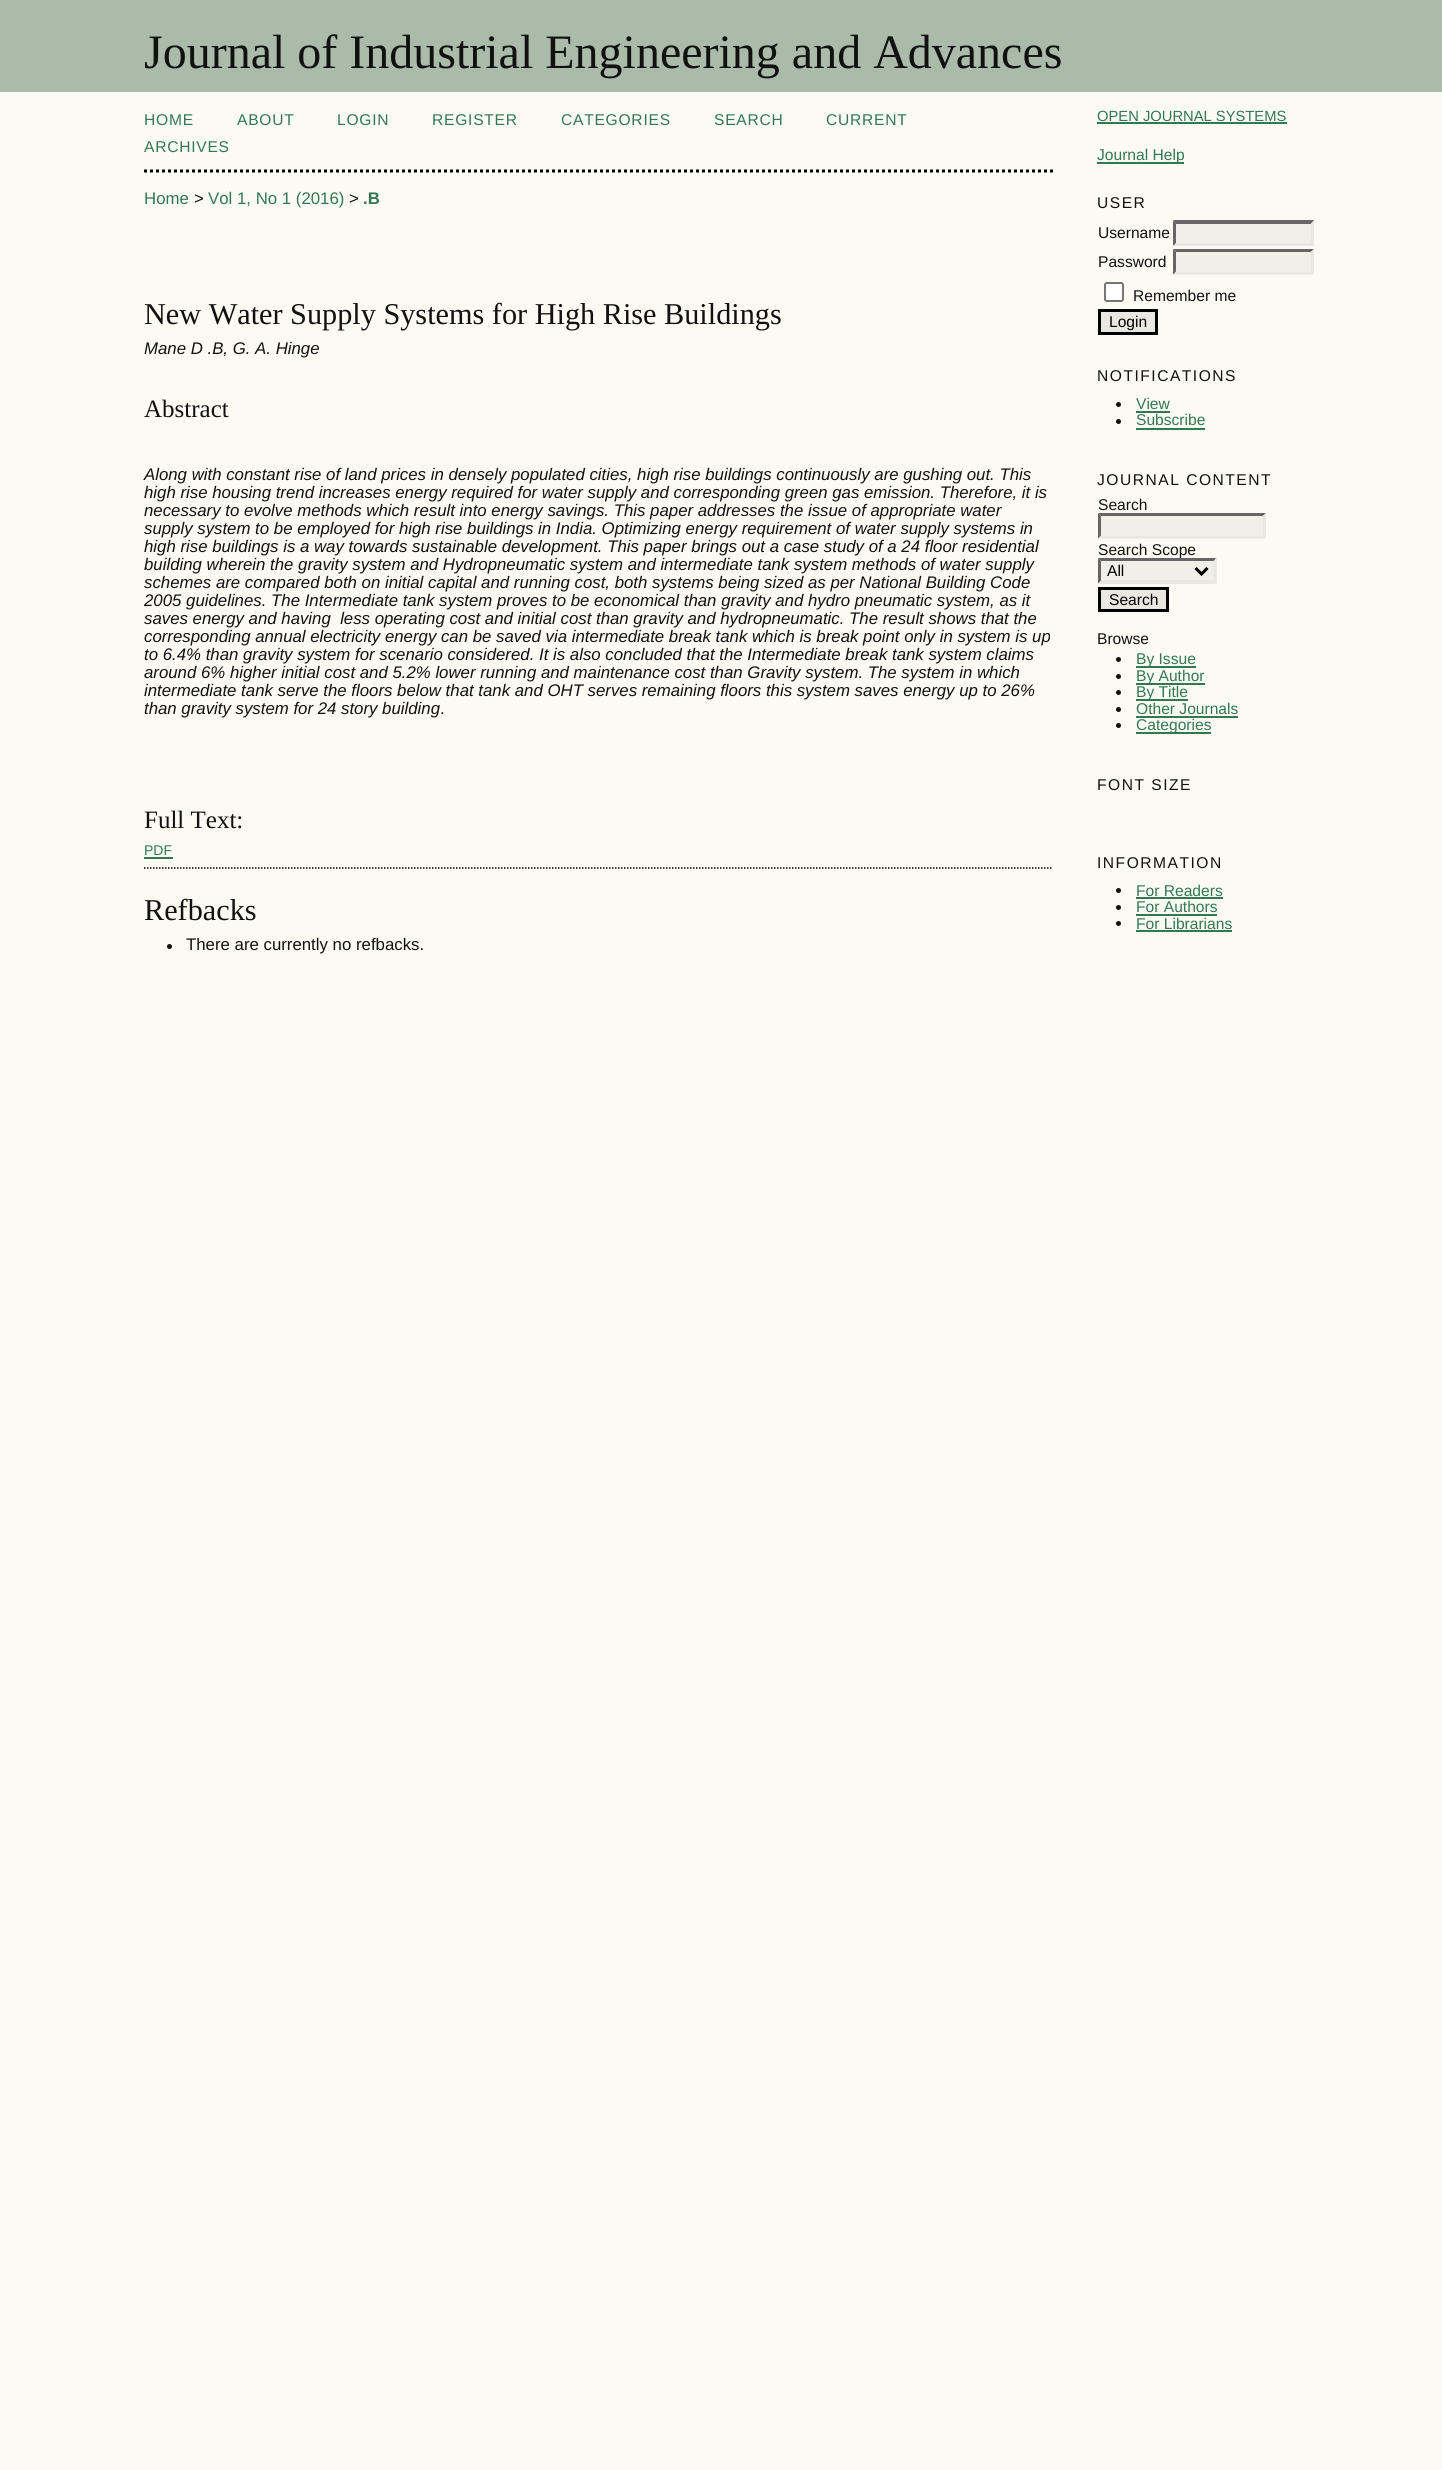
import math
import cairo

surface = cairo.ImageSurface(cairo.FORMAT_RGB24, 1442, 2470)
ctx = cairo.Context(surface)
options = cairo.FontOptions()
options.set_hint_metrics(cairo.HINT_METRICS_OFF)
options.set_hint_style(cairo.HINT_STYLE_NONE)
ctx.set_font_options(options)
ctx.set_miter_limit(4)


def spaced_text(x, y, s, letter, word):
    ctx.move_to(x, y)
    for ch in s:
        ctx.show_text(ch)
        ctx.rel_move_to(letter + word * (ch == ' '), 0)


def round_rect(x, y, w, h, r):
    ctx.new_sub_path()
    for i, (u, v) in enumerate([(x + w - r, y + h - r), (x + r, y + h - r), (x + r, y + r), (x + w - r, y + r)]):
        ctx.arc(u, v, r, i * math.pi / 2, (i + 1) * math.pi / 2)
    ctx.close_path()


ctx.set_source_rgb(0.984, 0.984, 0.953)
ctx.paint()
ctx.set_source_rgb(0.667, 0.733, 0.667)
ctx.rectangle(0, 0, 1442, 92)
ctx.fill()
ctx.select_font_face("Liberation Serif")
ctx.set_font_size(48)
ctx.set_source_rgb(0.067, 0.067, 0.067)
ctx.move_to(144, 68)
ctx.show_text("Journal of Industrial Engineering and Advances")
ctx.new_path()
ctx.move_to(144, 171)
ctx.line_to(1053, 171)
ctx.set_source_rgb(0, 0, 0)
ctx.set_line_width(3)
ctx.set_dash([3, 3])
ctx.stroke()
ctx.select_font_face("Liberation Sans")
ctx.set_font_size(15.6)
ctx.set_source_rgb(0.2, 0.467, 0.333)
spaced_text(144, 125, "HOME", 0.75, 0)
spaced_text(237, 125, "ABOUT", 0.75, 0)
spaced_text(337, 125, "LOGIN", 0.75, 0)
spaced_text(432, 125, "REGISTER", 0.75, 0)
spaced_text(561, 125, "CATEGORIES", 0.75, 0)
spaced_text(714, 125, "SEARCH", 0.75, 0)
spaced_text(826, 125, "CURRENT", 0.75, 0)
spaced_text(144, 152, "ARCHIVES", 0.75, 0)
ctx.set_font_size(16.8)
ctx.move_to(144, 204)
ctx.show_text("Home")
ctx.set_source_rgb(0.067, 0.067, 0.067)
ctx.move_to(194, 204)
ctx.show_text(">")
ctx.set_source_rgb(0.2, 0.467, 0.333)
ctx.move_to(208, 204)
ctx.show_text("Vol 1, No 1 (2016)")
ctx.set_source_rgb(0.067, 0.067, 0.067)
ctx.move_to(349, 204)
ctx.show_text(">")
ctx.select_font_face("Liberation Sans", cairo.FONT_SLANT_NORMAL, cairo.FONT_WEIGHT_BOLD)
ctx.set_source_rgb(0.2, 0.467, 0.333)
ctx.move_to(363, 204)
ctx.show_text(".B")
ctx.select_font_face("Liberation Serif")
ctx.set_font_size(30.25)
ctx.set_source_rgb(0.067, 0.067, 0.067)
ctx.move_to(144, 324)
ctx.show_text("New Water Supply Systems for High Rise Buildings")
ctx.select_font_face("Liberation Sans", cairo.FONT_SLANT_ITALIC)
ctx.set_font_size(16.8)
ctx.move_to(144, 354)
ctx.show_text("Mane D .B, G. A. Hinge")
ctx.select_font_face("Liberation Serif")
ctx.set_font_size(25)
ctx.move_to(144, 417)
ctx.show_text("Abstract")
ctx.select_font_face("Liberation Sans", cairo.FONT_SLANT_ITALIC)
ctx.set_font_size(16.8)
ctx.move_to(144, 480)
ctx.show_text("Along with constant rise of land prices in densely populated cities, high rise buildings continuously are gushing out. This")
ctx.move_to(144, 498)
ctx.show_text("high rise housing trend increases energy required for water supply and corresponding green gas emission. Therefore, it is")
ctx.move_to(144, 516)
ctx.show_text("necessary to evolve methods which result into energy savings. This paper addresses the issue of appropriate water")
ctx.move_to(144, 534)
ctx.show_text("supply system to be employed for high rise buildings in India. Optimizing energy requirement of water supply systems in")
ctx.move_to(144, 552)
ctx.show_text("high rise buildings is a way towards sustainable development. This paper brings out a case study of a 24 floor residential")
ctx.move_to(144, 570)
ctx.show_text("building wherein the gravity system and Hydropneumatic system and intermediate tank system methods of water supply")
ctx.move_to(144, 588)
ctx.show_text("schemes are compared both on initial capital and running cost, both systems being sized as per National Building Code")
ctx.move_to(144, 606)
ctx.show_text("2005 guidelines. The Intermediate tank system proves to be economical than gravity and hydro pneumatic system, as it")
ctx.move_to(144, 624)
ctx.show_text("saves energy and having  less operating cost and initial cost than gravity and hydropneumatic. The result shows that the")
ctx.move_to(144, 642)
ctx.show_text("corresponding annual electricity energy can be saved via intermediate break tank which is break point only in system is up")
ctx.move_to(144, 660)
ctx.show_text("to 6.4% than gravity system for scenario considered.")
ctx.move_to(539, 660)
ctx.show_text("It is also concluded that the Intermediate break tank system claims")
ctx.move_to(144, 678)
ctx.show_text("around 6% higher initial cost and 5.2% lower running and maintenance cost than Gravity system. The system in which")
ctx.move_to(144, 696)
ctx.show_text("intermediate tank serve the floors below that tank and OHT serves remaining floors this system saves energy up to 26%")
ctx.move_to(144, 714)
ctx.show_text("than gravity system for 24 story building")
ctx.select_font_face("Liberation Sans")
ctx.move_to(440, 714)
ctx.show_text(".")
ctx.select_font_face("Liberation Serif")
ctx.set_font_size(25)
ctx.move_to(144, 828)
ctx.show_text("Full Text:")
ctx.select_font_face("Liberation Sans")
ctx.set_font_size(14)
ctx.set_source_rgb(0.2, 0.467, 0.333)
ctx.move_to(144, 855)
ctx.show_text("PDF")
ctx.rectangle(144, 857, 29, 2)
ctx.fill()
ctx.new_path()
ctx.move_to(144, 868)
ctx.line_to(1053, 868)
ctx.set_source_rgb(0, 0, 0)
ctx.set_line_width(1.5)
ctx.set_dash([1.5, 1.5])
ctx.stroke()
ctx.select_font_face("Liberation Serif")
ctx.set_font_size(30.25)
ctx.set_source_rgb(0.067, 0.067, 0.067)
ctx.move_to(144, 920)
ctx.show_text("Refbacks")
ctx.new_path()
ctx.arc(169.5, 946.5, 2.5, 0, 2 * math.pi)
ctx.fill()
ctx.select_font_face("Liberation Sans")
ctx.set_font_size(16.8)
ctx.move_to(186, 950)
ctx.show_text("There are currently no refbacks.")
ctx.set_font_size(14.75)
ctx.set_source_rgb(0.2, 0.467, 0.333)
ctx.move_to(1097, 121)
ctx.show_text("OPEN JOURNAL SYSTEMS")
ctx.rectangle(1097, 122, 190, 2)
ctx.fill()
ctx.rectangle(1097, 162, 87, 2)
ctx.fill()
ctx.set_font_size(15.6)
ctx.move_to(1097, 160)
ctx.show_text("Journal Help")
ctx.set_source_rgb(0.067, 0.067, 0.067)
spaced_text(1097, 208, "USER", 1.5, 0)
ctx.move_to(1098, 238)
ctx.show_text("Username")
ctx.set_source_rgb(0.941, 0.941, 0.91)
ctx.rectangle(1173, 221, 141, 25)
ctx.fill()
ctx.set_source_rgb(0.4, 0.4, 0.4)
ctx.new_path()
ctx.move_to(1173, 220)
ctx.line_to(1314, 220)
ctx.line_to(1311, 224)
ctx.line_to(1176, 224)
ctx.close_path()
ctx.fill()
ctx.set_source_rgb(0.91, 0.91, 0.882)
ctx.new_path()
ctx.move_to(1314, 220.5)
ctx.line_to(1314, 246)
ctx.line_to(1311, 243)
ctx.line_to(1311, 223.5)
ctx.close_path()
ctx.fill()
ctx.new_path()
ctx.move_to(1314, 246)
ctx.line_to(1173, 246)
ctx.line_to(1176, 243)
ctx.line_to(1311, 243)
ctx.close_path()
ctx.fill()
ctx.set_source_rgb(0.4, 0.4, 0.4)
ctx.new_path()
ctx.move_to(1173, 246)
ctx.line_to(1173, 220.5)
ctx.line_to(1176, 223.5)
ctx.line_to(1176, 243)
ctx.close_path()
ctx.fill()
ctx.set_source_rgb(0.067, 0.067, 0.067)
ctx.move_to(1098, 267)
ctx.show_text("Password")
ctx.set_source_rgb(0.941, 0.941, 0.91)
ctx.rectangle(1173, 249, 141, 26)
ctx.fill()
ctx.set_source_rgb(0.4, 0.4, 0.4)
ctx.new_path()
ctx.move_to(1173, 249)
ctx.line_to(1314, 249)
ctx.line_to(1311, 252)
ctx.line_to(1176, 252)
ctx.close_path()
ctx.fill()
ctx.set_source_rgb(0.91, 0.91, 0.882)
ctx.new_path()
ctx.move_to(1314, 249)
ctx.line_to(1314, 274.5)
ctx.line_to(1311, 271.5)
ctx.line_to(1311, 252)
ctx.close_path()
ctx.fill()
ctx.new_path()
ctx.move_to(1314, 274)
ctx.line_to(1173, 274)
ctx.line_to(1176, 272)
ctx.line_to(1311, 272)
ctx.close_path()
ctx.fill()
ctx.set_source_rgb(0.4, 0.4, 0.4)
ctx.new_path()
ctx.move_to(1173, 274.5)
ctx.line_to(1173, 249)
ctx.line_to(1176, 252)
ctx.line_to(1176, 271.5)
ctx.close_path()
ctx.fill()
ctx.set_source_rgb(1, 1, 1)
round_rect(1105, 283, 18, 18, 2)
ctx.fill_preserve()
ctx.set_source_rgb(0.463, 0.463, 0.463)
ctx.set_line_width(2)
ctx.set_dash([])
ctx.stroke()
ctx.set_source_rgb(0.067, 0.067, 0.067)
ctx.move_to(1133, 301)
ctx.show_text("Remember me")
ctx.set_source_rgb(0.91, 0.91, 0.882)
ctx.rectangle(1099.5, 310.5, 57, 23)
ctx.fill_preserve()
ctx.set_source_rgb(0, 0, 0)
ctx.set_line_width(3)
ctx.stroke()
ctx.move_to(1109, 327)
ctx.show_text("Login")
ctx.set_source_rgb(0.067, 0.067, 0.067)
spaced_text(1097, 381, "NOTIFICATIONS", 1.5, 0)
ctx.new_path()
ctx.arc(1118.5, 404.5, 2.5, 0, 2 * math.pi)
ctx.fill()
ctx.set_source_rgb(0.2, 0.467, 0.333)
ctx.move_to(1136, 409)
ctx.show_text("View")
ctx.rectangle(1136, 411, 34, 2)
ctx.fill()
ctx.set_source_rgb(0.067, 0.067, 0.067)
ctx.arc(1118.5, 421.5, 2.5, 0, 2 * math.pi)
ctx.fill()
ctx.set_source_rgb(0.2, 0.467, 0.333)
ctx.move_to(1136, 425)
ctx.show_text("Subscribe")
ctx.rectangle(1136, 428, 69, 2)
ctx.fill()
ctx.set_source_rgb(0.067, 0.067, 0.067)
spaced_text(1097, 485, "JOURNAL CONTENT", 1.5, 0)
ctx.move_to(1098, 510)
ctx.show_text("Search")
ctx.set_source_rgb(0.941, 0.941, 0.91)
ctx.rectangle(1098, 513, 168, 26)
ctx.fill()
ctx.set_source_rgb(0.4, 0.4, 0.4)
ctx.new_path()
ctx.move_to(1098, 513)
ctx.line_to(1266, 513)
ctx.line_to(1263, 516)
ctx.line_to(1101, 516)
ctx.close_path()
ctx.fill()
ctx.set_source_rgb(0.91, 0.91, 0.882)
ctx.new_path()
ctx.move_to(1266, 513)
ctx.line_to(1266, 538.5)
ctx.line_to(1263, 535.5)
ctx.line_to(1263, 516)
ctx.close_path()
ctx.fill()
ctx.new_path()
ctx.move_to(1266, 538)
ctx.line_to(1098, 538)
ctx.line_to(1101, 536)
ctx.line_to(1263, 536)
ctx.close_path()
ctx.fill()
ctx.set_source_rgb(0.4, 0.4, 0.4)
ctx.new_path()
ctx.move_to(1098, 538.5)
ctx.line_to(1098, 513)
ctx.line_to(1101, 516)
ctx.line_to(1101, 535.5)
ctx.close_path()
ctx.fill()
ctx.set_source_rgb(0.067, 0.067, 0.067)
ctx.move_to(1098, 555)
ctx.show_text("Search Scope")
ctx.set_source_rgb(0.941, 0.941, 0.91)
ctx.rectangle(1098, 558, 119, 26)
ctx.fill()
ctx.set_source_rgb(0.4, 0.4, 0.4)
ctx.new_path()
ctx.move_to(1098, 558)
ctx.line_to(1216, 558)
ctx.line_to(1214, 561)
ctx.line_to(1101, 561)
ctx.close_path()
ctx.fill()
ctx.set_source_rgb(0.91, 0.91, 0.882)
ctx.new_path()
ctx.move_to(1216.5, 558)
ctx.line_to(1216.5, 583.5)
ctx.line_to(1213.5, 580.5)
ctx.line_to(1213.5, 561)
ctx.close_path()
ctx.fill()
ctx.new_path()
ctx.move_to(1216, 584)
ctx.line_to(1098, 584)
ctx.line_to(1101, 580)
ctx.line_to(1214, 580)
ctx.close_path()
ctx.fill()
ctx.set_source_rgb(0.4, 0.4, 0.4)
ctx.new_path()
ctx.move_to(1098, 583.5)
ctx.line_to(1098, 558)
ctx.line_to(1101, 561)
ctx.line_to(1101, 580.5)
ctx.close_path()
ctx.fill()
ctx.new_path()
ctx.move_to(1195.5, 568)
ctx.line_to(1201.5, 574)
ctx.line_to(1207.5, 568)
ctx.set_source_rgb(0, 0, 0)
ctx.stroke()
ctx.move_to(1107, 576)
ctx.show_text("All")
ctx.set_source_rgb(0.91, 0.91, 0.882)
ctx.rectangle(1099.5, 588.5, 68, 22)
ctx.fill_preserve()
ctx.set_source_rgb(0, 0, 0)
ctx.stroke()
ctx.move_to(1109, 605)
ctx.show_text("Search")
ctx.set_source_rgb(0.067, 0.067, 0.067)
ctx.move_to(1097, 644)
ctx.show_text("Browse")
ctx.new_path()
ctx.arc(1118.5, 659.5, 2.5, 0, 2 * math.pi)
ctx.fill()
ctx.set_source_rgb(0.2, 0.467, 0.333)
ctx.rectangle(1136, 666, 60, 2)
ctx.fill()
ctx.move_to(1136, 664)
ctx.show_text("By Issue")
ctx.set_source_rgb(0.067, 0.067, 0.067)
ctx.new_path()
ctx.arc(1118.5, 676.5, 2.5, 0, 2 * math.pi)
ctx.fill()
ctx.set_source_rgb(0.2, 0.467, 0.333)
ctx.rectangle(1136, 683, 69, 2)
ctx.fill()
ctx.move_to(1136, 681)
ctx.show_text("By Author")
ctx.set_source_rgb(0.067, 0.067, 0.067)
ctx.new_path()
ctx.arc(1118.5, 692.5, 2.5, 0, 2 * math.pi)
ctx.fill()
ctx.set_source_rgb(0.2, 0.467, 0.333)
ctx.rectangle(1136, 699, 52, 2)
ctx.fill()
ctx.move_to(1136, 697)
ctx.show_text("By Title")
ctx.set_source_rgb(0.067, 0.067, 0.067)
ctx.new_path()
ctx.arc(1118.5, 709.5, 2.5, 0, 2 * math.pi)
ctx.fill()
ctx.set_source_rgb(0.2, 0.467, 0.333)
ctx.move_to(1136, 714)
ctx.show_text("Other Journals")
ctx.rectangle(1136, 716, 102, 2)
ctx.fill()
ctx.set_source_rgb(0.067, 0.067, 0.067)
ctx.arc(1118.5, 725.5, 2.5, 0, 2 * math.pi)
ctx.fill()
ctx.set_source_rgb(0.2, 0.467, 0.333)
ctx.rectangle(1136, 732, 75, 2)
ctx.fill()
ctx.move_to(1136, 730)
ctx.show_text("Categories")
ctx.set_source_rgb(0.067, 0.067, 0.067)
spaced_text(1097, 790, "FONT SIZE", 1.5, 0)
spaced_text(1097, 868, "INFORMATION", 1.5, 0)
ctx.new_path()
ctx.arc(1118.5, 890.5, 2.5, 0, 2 * math.pi)
ctx.fill()
ctx.set_source_rgb(0.2, 0.467, 0.333)
ctx.move_to(1136, 896)
ctx.show_text("For Readers")
ctx.rectangle(1136, 897, 87, 2)
ctx.fill()
ctx.set_source_rgb(0.067, 0.067, 0.067)
ctx.arc(1118.5, 907.5, 2.5, 0, 2 * math.pi)
ctx.fill()
ctx.set_source_rgb(0.2, 0.467, 0.333)
ctx.move_to(1136, 912)
ctx.show_text("For Authors")
ctx.rectangle(1136, 914, 81, 2)
ctx.fill()
ctx.set_source_rgb(0.067, 0.067, 0.067)
ctx.arc(1118.5, 923.5, 2.5, 0, 2 * math.pi)
ctx.fill()
ctx.set_source_rgb(0.2, 0.467, 0.333)
ctx.move_to(1136, 929)
ctx.show_text("For Librarians")
ctx.rectangle(1136, 930, 96, 2)
ctx.fill()
surface.write_to_png("page.png")
